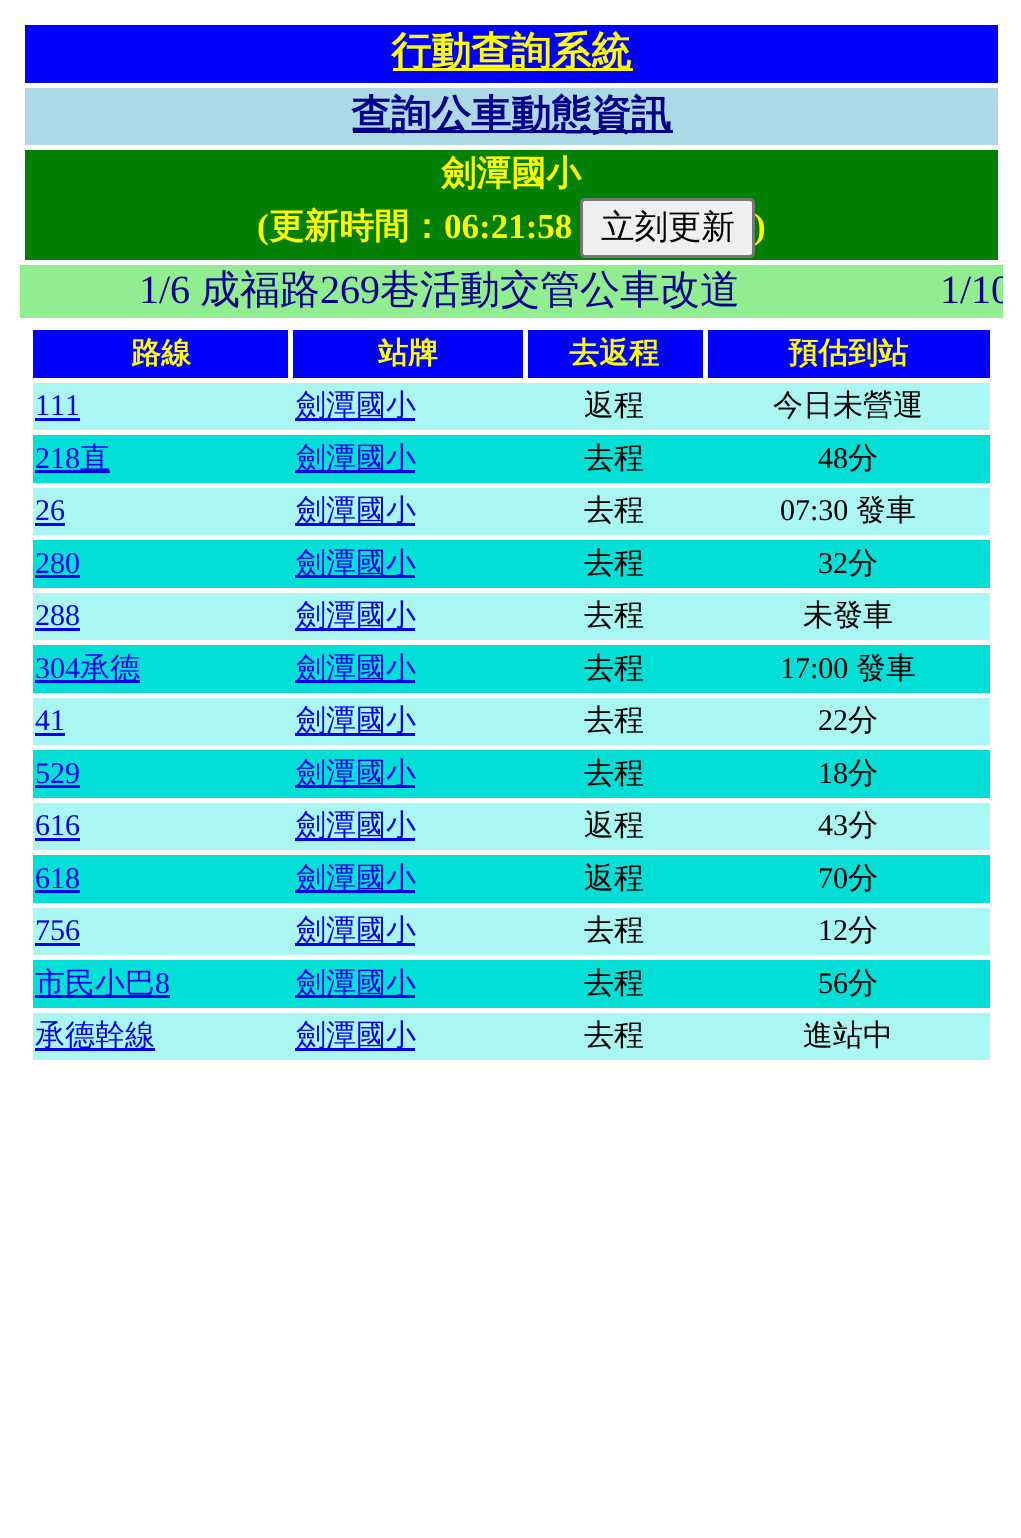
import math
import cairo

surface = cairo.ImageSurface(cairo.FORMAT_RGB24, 1021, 1538)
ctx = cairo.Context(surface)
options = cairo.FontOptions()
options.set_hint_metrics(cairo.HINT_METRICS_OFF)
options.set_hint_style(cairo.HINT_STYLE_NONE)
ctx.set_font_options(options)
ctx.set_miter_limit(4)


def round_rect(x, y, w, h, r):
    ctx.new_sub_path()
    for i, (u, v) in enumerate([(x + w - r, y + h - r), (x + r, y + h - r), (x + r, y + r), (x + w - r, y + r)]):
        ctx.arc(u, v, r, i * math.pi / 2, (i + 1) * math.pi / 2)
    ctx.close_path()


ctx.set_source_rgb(1, 1, 1)
ctx.paint()
ctx.set_source_rgb(0, 0, 1)
ctx.rectangle(25, 25, 973, 58)
ctx.fill()
ctx.set_source_rgb(1, 1, 0)
ctx.rectangle(393, 68, 240, 3)
ctx.fill()
ctx.select_font_face("WenQuanYi Zen Hei", cairo.FONT_SLANT_NORMAL, cairo.FONT_WEIGHT_BOLD)
ctx.set_font_size(40)
ctx.move_to(391, 65)
ctx.show_text("行動查詢系統")
ctx.set_source_rgb(0.678, 0.847, 0.902)
ctx.rectangle(25, 88, 973, 57)
ctx.fill()
ctx.set_source_rgb(0, 0, 0.545)
ctx.rectangle(353, 130, 320, 3)
ctx.fill()
ctx.move_to(351, 128)
ctx.show_text("查詢公車動態資訊")
ctx.set_source_rgb(0, 0.502, 0)
ctx.rectangle(25, 150, 973, 110)
ctx.fill()
ctx.set_font_size(35)
ctx.set_source_rgb(1, 1, 0)
ctx.move_to(441, 185)
ctx.show_text("劍潭國小")
ctx.select_font_face("Liberation Serif", cairo.FONT_SLANT_NORMAL, cairo.FONT_WEIGHT_BOLD)
ctx.move_to(257, 238)
ctx.show_text("(")
ctx.select_font_face("WenQuanYi Zen Hei", cairo.FONT_SLANT_NORMAL, cairo.FONT_WEIGHT_BOLD)
ctx.move_to(269, 238)
ctx.show_text("更新時間：")
ctx.select_font_face("Liberation Serif", cairo.FONT_SLANT_NORMAL, cairo.FONT_WEIGHT_BOLD)
ctx.move_to(444, 238)
ctx.show_text("06:21:58")
ctx.set_source_rgb(0.937, 0.937, 0.937)
round_rect(581.5, 199.5, 172, 57, 3.5)
ctx.fill_preserve()
ctx.set_source_rgb(0.463, 0.463, 0.463)
ctx.set_line_width(3)
ctx.stroke()
ctx.select_font_face("WenQuanYi Zen Hei Medium")
ctx.set_font_size(33.5)
ctx.set_source_rgb(0, 0, 0)
ctx.move_to(601, 238)
ctx.show_text("立刻更新")
ctx.select_font_face("Liberation Serif", cairo.FONT_SLANT_NORMAL, cairo.FONT_WEIGHT_BOLD)
ctx.set_font_size(35)
ctx.set_source_rgb(1, 1, 0)
ctx.move_to(754, 238)
ctx.show_text(")")
ctx.set_source_rgb(0.565, 0.933, 0.565)
ctx.rectangle(20, 265, 983, 53)
ctx.fill()
ctx.select_font_face("Liberation Serif")
ctx.set_font_size(40)
ctx.set_source_rgb(0, 0, 0.545)
ctx.move_to(139, 303)
ctx.show_text("1/6")
ctx.select_font_face("WenQuanYi Zen Hei Medium")
ctx.move_to(200, 303)
ctx.show_text("成福路")
ctx.select_font_face("Liberation Serif")
ctx.move_to(320, 303)
ctx.show_text("269")
ctx.select_font_face("WenQuanYi Zen Hei Medium")
ctx.move_to(380, 303)
ctx.show_text("巷活動交管公車改道")
ctx.save()
ctx.rectangle(20, 265, 983, 53)
ctx.clip()
ctx.select_font_face("Liberation Serif")
ctx.move_to(940, 303)
ctx.show_text("1/10")
ctx.restore()
ctx.set_source_rgb(0, 0, 1)
ctx.rectangle(33, 330, 255, 48)
ctx.fill()
ctx.select_font_face("WenQuanYi Zen Hei", cairo.FONT_SLANT_NORMAL, cairo.FONT_WEIGHT_BOLD)
ctx.set_font_size(30)
ctx.set_source_rgb(1, 1, 0)
ctx.move_to(131, 363)
ctx.show_text("路線")
ctx.set_source_rgb(0, 0, 1)
ctx.rectangle(293, 330, 230, 48)
ctx.fill()
ctx.set_source_rgb(1, 1, 0)
ctx.move_to(378, 363)
ctx.show_text("站牌")
ctx.set_source_rgb(0, 0, 1)
ctx.rectangle(528, 330, 175, 48)
ctx.fill()
ctx.set_source_rgb(1, 1, 0)
ctx.move_to(569, 363)
ctx.show_text("去返程")
ctx.set_source_rgb(0, 0, 1)
ctx.rectangle(708, 330, 282, 48)
ctx.fill()
ctx.set_source_rgb(1, 1, 0)
ctx.move_to(788, 363)
ctx.show_text("預估到站")
ctx.set_source_rgb(0.663, 0.961, 0.949)
ctx.rectangle(33, 383, 957, 47)
ctx.fill()
ctx.select_font_face("Liberation Serif")
ctx.set_source_rgb(0, 0, 0.933)
ctx.move_to(35, 415)
ctx.show_text("111")
ctx.rectangle(35, 418, 45, 3)
ctx.fill()
ctx.rectangle(295, 418, 120, 3)
ctx.fill()
ctx.select_font_face("WenQuanYi Zen Hei Medium")
ctx.move_to(296, 415)
ctx.show_text("劍潭國小")
ctx.set_source_rgb(0, 0, 0)
ctx.move_to(584, 415)
ctx.show_text("返程")
ctx.move_to(773, 415)
ctx.show_text("今日未營運")
ctx.set_source_rgb(0.004, 0.875, 0.843)
ctx.rectangle(33, 435, 957, 48)
ctx.fill()
ctx.select_font_face("Liberation Serif")
ctx.set_source_rgb(0, 0, 0.933)
ctx.move_to(35, 468)
ctx.show_text("218")
ctx.rectangle(35, 470, 75, 3)
ctx.fill()
ctx.select_font_face("WenQuanYi Zen Hei Medium")
ctx.move_to(80, 468)
ctx.show_text("直")
ctx.rectangle(295, 470, 120, 3)
ctx.fill()
ctx.move_to(296, 468)
ctx.show_text("劍潭國小")
ctx.set_source_rgb(0, 0, 0)
ctx.move_to(584, 468)
ctx.show_text("去程")
ctx.select_font_face("Liberation Serif")
ctx.move_to(818, 468)
ctx.show_text("48")
ctx.select_font_face("WenQuanYi Zen Hei Medium")
ctx.move_to(848, 468)
ctx.show_text("分")
ctx.set_source_rgb(0.663, 0.961, 0.949)
ctx.rectangle(33, 488, 957, 47)
ctx.fill()
ctx.select_font_face("Liberation Serif")
ctx.set_source_rgb(0, 0, 0.933)
ctx.move_to(35, 520)
ctx.show_text("26")
ctx.rectangle(35, 523, 30, 3)
ctx.fill()
ctx.rectangle(295, 523, 120, 3)
ctx.fill()
ctx.select_font_face("WenQuanYi Zen Hei Medium")
ctx.move_to(296, 520)
ctx.show_text("劍潭國小")
ctx.set_source_rgb(0, 0, 0)
ctx.move_to(584, 520)
ctx.show_text("去程")
ctx.select_font_face("Liberation Serif")
ctx.move_to(780, 520)
ctx.show_text("07:30")
ctx.select_font_face("WenQuanYi Zen Hei Medium")
ctx.move_to(856, 520)
ctx.show_text("發車")
ctx.set_source_rgb(0.004, 0.875, 0.843)
ctx.rectangle(33, 540, 957, 48)
ctx.fill()
ctx.select_font_face("Liberation Serif")
ctx.set_source_rgb(0, 0, 0.933)
ctx.move_to(35, 573)
ctx.show_text("280")
ctx.rectangle(35, 575, 45, 3)
ctx.fill()
ctx.rectangle(295, 575, 120, 3)
ctx.fill()
ctx.select_font_face("WenQuanYi Zen Hei Medium")
ctx.move_to(296, 573)
ctx.show_text("劍潭國小")
ctx.set_source_rgb(0, 0, 0)
ctx.move_to(584, 573)
ctx.show_text("去程")
ctx.select_font_face("Liberation Serif")
ctx.move_to(818, 573)
ctx.show_text("32")
ctx.select_font_face("WenQuanYi Zen Hei Medium")
ctx.move_to(848, 573)
ctx.show_text("分")
ctx.set_source_rgb(0.663, 0.961, 0.949)
ctx.rectangle(33, 593, 957, 47)
ctx.fill()
ctx.select_font_face("Liberation Serif")
ctx.set_source_rgb(0, 0, 0.933)
ctx.move_to(35, 625)
ctx.show_text("288")
ctx.rectangle(35, 628, 45, 3)
ctx.fill()
ctx.rectangle(295, 628, 120, 3)
ctx.fill()
ctx.select_font_face("WenQuanYi Zen Hei Medium")
ctx.move_to(296, 625)
ctx.show_text("劍潭國小")
ctx.set_source_rgb(0, 0, 0)
ctx.move_to(584, 625)
ctx.show_text("去程")
ctx.move_to(803, 625)
ctx.show_text("未發車")
ctx.set_source_rgb(0.004, 0.875, 0.843)
ctx.rectangle(33, 645, 957, 48)
ctx.fill()
ctx.select_font_face("Liberation Serif")
ctx.set_source_rgb(0, 0, 0.933)
ctx.move_to(35, 678)
ctx.show_text("304")
ctx.rectangle(35, 680, 105, 3)
ctx.fill()
ctx.select_font_face("WenQuanYi Zen Hei Medium")
ctx.move_to(80, 678)
ctx.show_text("承德")
ctx.rectangle(295, 680, 120, 3)
ctx.fill()
ctx.move_to(296, 678)
ctx.show_text("劍潭國小")
ctx.set_source_rgb(0, 0, 0)
ctx.move_to(584, 678)
ctx.show_text("去程")
ctx.select_font_face("Liberation Serif")
ctx.move_to(780, 678)
ctx.show_text("17:00")
ctx.select_font_face("WenQuanYi Zen Hei Medium")
ctx.move_to(856, 678)
ctx.show_text("發車")
ctx.set_source_rgb(0.663, 0.961, 0.949)
ctx.rectangle(33, 698, 957, 47)
ctx.fill()
ctx.select_font_face("Liberation Serif")
ctx.set_source_rgb(0, 0, 0.933)
ctx.move_to(35, 730)
ctx.show_text("41")
ctx.rectangle(35, 733, 30, 3)
ctx.fill()
ctx.rectangle(295, 733, 120, 3)
ctx.fill()
ctx.select_font_face("WenQuanYi Zen Hei Medium")
ctx.move_to(296, 730)
ctx.show_text("劍潭國小")
ctx.set_source_rgb(0, 0, 0)
ctx.move_to(584, 730)
ctx.show_text("去程")
ctx.select_font_face("Liberation Serif")
ctx.move_to(818, 730)
ctx.show_text("22")
ctx.select_font_face("WenQuanYi Zen Hei Medium")
ctx.move_to(848, 730)
ctx.show_text("分")
ctx.set_source_rgb(0.004, 0.875, 0.843)
ctx.rectangle(33, 750, 957, 48)
ctx.fill()
ctx.select_font_face("Liberation Serif")
ctx.set_source_rgb(0, 0, 0.933)
ctx.move_to(35, 783)
ctx.show_text("529")
ctx.rectangle(35, 785, 45, 3)
ctx.fill()
ctx.rectangle(295, 785, 120, 3)
ctx.fill()
ctx.select_font_face("WenQuanYi Zen Hei Medium")
ctx.move_to(296, 783)
ctx.show_text("劍潭國小")
ctx.set_source_rgb(0, 0, 0)
ctx.move_to(584, 783)
ctx.show_text("去程")
ctx.select_font_face("Liberation Serif")
ctx.move_to(818, 783)
ctx.show_text("18")
ctx.select_font_face("WenQuanYi Zen Hei Medium")
ctx.move_to(848, 783)
ctx.show_text("分")
ctx.set_source_rgb(0.663, 0.961, 0.949)
ctx.rectangle(33, 803, 957, 47)
ctx.fill()
ctx.select_font_face("Liberation Serif")
ctx.set_source_rgb(0, 0, 0.933)
ctx.move_to(35, 835)
ctx.show_text("616")
ctx.rectangle(35, 838, 45, 3)
ctx.fill()
ctx.rectangle(295, 838, 120, 3)
ctx.fill()
ctx.select_font_face("WenQuanYi Zen Hei Medium")
ctx.move_to(296, 835)
ctx.show_text("劍潭國小")
ctx.set_source_rgb(0, 0, 0)
ctx.move_to(584, 835)
ctx.show_text("返程")
ctx.select_font_face("Liberation Serif")
ctx.move_to(818, 835)
ctx.show_text("43")
ctx.select_font_face("WenQuanYi Zen Hei Medium")
ctx.move_to(848, 835)
ctx.show_text("分")
ctx.set_source_rgb(0.004, 0.875, 0.843)
ctx.rectangle(33, 855, 957, 48)
ctx.fill()
ctx.select_font_face("Liberation Serif")
ctx.set_source_rgb(0, 0, 0.933)
ctx.move_to(35, 888)
ctx.show_text("618")
ctx.rectangle(35, 890, 45, 3)
ctx.fill()
ctx.rectangle(295, 890, 120, 3)
ctx.fill()
ctx.select_font_face("WenQuanYi Zen Hei Medium")
ctx.move_to(296, 888)
ctx.show_text("劍潭國小")
ctx.set_source_rgb(0, 0, 0)
ctx.move_to(584, 888)
ctx.show_text("返程")
ctx.select_font_face("Liberation Serif")
ctx.move_to(818, 888)
ctx.show_text("70")
ctx.select_font_face("WenQuanYi Zen Hei Medium")
ctx.move_to(848, 888)
ctx.show_text("分")
ctx.set_source_rgb(0.663, 0.961, 0.949)
ctx.rectangle(33, 908, 957, 47)
ctx.fill()
ctx.select_font_face("Liberation Serif")
ctx.set_source_rgb(0, 0, 0.933)
ctx.move_to(35, 940)
ctx.show_text("756")
ctx.rectangle(35, 943, 45, 3)
ctx.fill()
ctx.rectangle(295, 943, 120, 3)
ctx.fill()
ctx.select_font_face("WenQuanYi Zen Hei Medium")
ctx.move_to(296, 940)
ctx.show_text("劍潭國小")
ctx.set_source_rgb(0, 0, 0)
ctx.move_to(584, 940)
ctx.show_text("去程")
ctx.select_font_face("Liberation Serif")
ctx.move_to(818, 940)
ctx.show_text("12")
ctx.select_font_face("WenQuanYi Zen Hei Medium")
ctx.move_to(848, 940)
ctx.show_text("分")
ctx.set_source_rgb(0.004, 0.875, 0.843)
ctx.rectangle(33, 960, 957, 48)
ctx.fill()
ctx.set_source_rgb(0, 0, 0.933)
ctx.rectangle(35, 995, 135, 3)
ctx.fill()
ctx.move_to(35, 993)
ctx.show_text("市民小巴")
ctx.select_font_face("Liberation Serif")
ctx.move_to(155, 993)
ctx.show_text("8")
ctx.rectangle(295, 995, 120, 3)
ctx.fill()
ctx.select_font_face("WenQuanYi Zen Hei Medium")
ctx.move_to(296, 993)
ctx.show_text("劍潭國小")
ctx.set_source_rgb(0, 0, 0)
ctx.move_to(584, 993)
ctx.show_text("去程")
ctx.select_font_face("Liberation Serif")
ctx.move_to(818, 993)
ctx.show_text("56")
ctx.select_font_face("WenQuanYi Zen Hei Medium")
ctx.move_to(848, 993)
ctx.show_text("分")
ctx.set_source_rgb(0.663, 0.961, 0.949)
ctx.rectangle(33, 1013, 957, 47)
ctx.fill()
ctx.set_source_rgb(0, 0, 0.933)
ctx.rectangle(35, 1048, 120, 3)
ctx.fill()
ctx.move_to(35, 1045)
ctx.show_text("承德幹線")
ctx.rectangle(295, 1048, 120, 3)
ctx.fill()
ctx.move_to(296, 1045)
ctx.show_text("劍潭國小")
ctx.set_source_rgb(0, 0, 0)
ctx.move_to(584, 1045)
ctx.show_text("去程")
ctx.move_to(803, 1045)
ctx.show_text("進站中")
surface.write_to_png("page.png")
